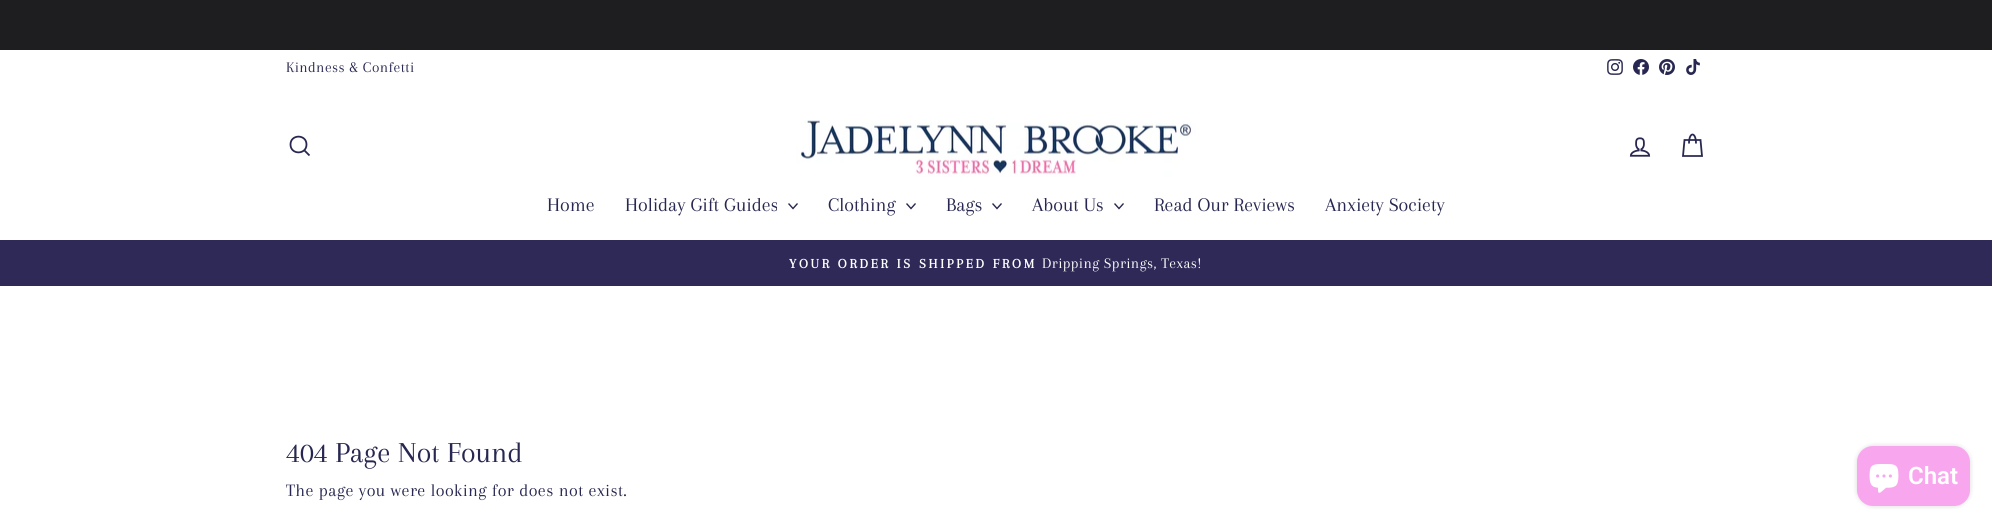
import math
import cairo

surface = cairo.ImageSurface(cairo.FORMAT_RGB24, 1992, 527)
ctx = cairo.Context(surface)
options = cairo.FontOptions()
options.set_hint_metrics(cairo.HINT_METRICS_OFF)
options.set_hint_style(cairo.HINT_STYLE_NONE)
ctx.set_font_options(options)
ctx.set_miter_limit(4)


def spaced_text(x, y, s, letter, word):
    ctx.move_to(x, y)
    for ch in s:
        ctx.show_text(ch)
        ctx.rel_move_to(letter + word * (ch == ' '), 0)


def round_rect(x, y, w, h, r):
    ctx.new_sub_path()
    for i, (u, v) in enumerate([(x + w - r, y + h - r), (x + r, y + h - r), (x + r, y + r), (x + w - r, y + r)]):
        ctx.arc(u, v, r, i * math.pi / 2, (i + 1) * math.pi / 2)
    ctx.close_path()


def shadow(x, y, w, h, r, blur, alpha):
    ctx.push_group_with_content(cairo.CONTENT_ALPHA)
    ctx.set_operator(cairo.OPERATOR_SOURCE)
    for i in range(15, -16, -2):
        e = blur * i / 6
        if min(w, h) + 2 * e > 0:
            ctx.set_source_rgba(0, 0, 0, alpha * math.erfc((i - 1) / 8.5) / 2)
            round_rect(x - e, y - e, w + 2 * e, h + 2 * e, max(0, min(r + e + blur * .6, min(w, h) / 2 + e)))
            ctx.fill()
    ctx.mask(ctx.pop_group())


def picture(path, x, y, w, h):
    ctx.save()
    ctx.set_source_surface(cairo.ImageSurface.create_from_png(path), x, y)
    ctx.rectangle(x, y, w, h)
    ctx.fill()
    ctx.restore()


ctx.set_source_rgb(1, 1, 1)
ctx.paint()
ctx.set_source_rgb(0.118, 0.118, 0.125)
ctx.rectangle(0, 0, 1992, 50)
ctx.fill()
ctx.select_font_face("Arapey")
ctx.set_font_size(15.25)
ctx.set_source_rgb(0.153, 0.153, 0.318)
spaced_text(286, 72, "Kindness & Confetti", 0.45, 0)
picture("img1.png", 1607, 59, 16, 16)
picture("img2.png", 1633, 59, 16, 16)
picture("img3.png", 1659, 59, 16, 16)
picture("img4.png", 1686, 59, 14, 16)
ctx.new_path()
ctx.move_to(306.5, 144.5)
ctx.curve_to(306.5, 155, 290.5, 155, 290.5, 144.5)
ctx.curve_to(290.5, 134, 306.5, 134, 306.5, 144.5)
ctx.close_path()
ctx.move_to(309.5, 155.5)
ctx.line_to(304.5, 150.5)
ctx.set_line_width(1.8)
ctx.stroke()
picture("img5.png", 796, 120, 400, 57)
picture("img6.png", 1629, 137, 22, 20)
ctx.new_path()
ctx.move_to(1689, 143.5)
ctx.curve_to(1689, 131.5, 1696, 131.5, 1696, 143.5)
ctx.move_to(1684.5, 140)
ctx.line_to(1700.5, 140)
ctx.line_to(1702, 156)
ctx.line_to(1683, 156)
ctx.close_path()
ctx.stroke()
ctx.set_font_size(20)
ctx.move_to(547, 211)
ctx.show_text("Home")
ctx.move_to(625, 211)
ctx.show_text("Holiday Gift Guides")
ctx.new_path()
ctx.move_to(788.5, 203.5)
ctx.line_to(793, 208.5)
ctx.line_to(797.5, 203.5)
ctx.set_line_width(1.4)
ctx.stroke()
ctx.move_to(828, 211)
ctx.show_text("Clothing")
ctx.new_path()
ctx.move_to(906.5, 203.5)
ctx.line_to(911, 208.5)
ctx.line_to(915.5, 203.5)
ctx.stroke()
ctx.move_to(946, 211)
ctx.show_text("Bags")
ctx.new_path()
ctx.move_to(992.5, 203.5)
ctx.line_to(997, 208.5)
ctx.line_to(1001.5, 203.5)
ctx.stroke()
ctx.move_to(1032, 211)
ctx.show_text("About Us")
ctx.new_path()
ctx.move_to(1114.5, 203.5)
ctx.line_to(1119, 208.5)
ctx.line_to(1123.5, 203.5)
ctx.stroke()
ctx.move_to(1154, 211)
ctx.show_text("Read Our Reviews")
ctx.move_to(1325, 211)
ctx.show_text("Anxiety Society")
ctx.set_source_rgb(0.18, 0.161, 0.337)
ctx.rectangle(0, 240, 1992, 46)
ctx.fill()
ctx.select_font_face("Arapey", cairo.FONT_SLANT_NORMAL, cairo.FONT_WEIGHT_BOLD)
ctx.set_font_size(13.75)
ctx.set_source_rgb(1, 1, 1)
spaced_text(789, 268, "YOUR ORDER IS SHIPPED FROM", 2.75, 0)
ctx.select_font_face("Arapey")
ctx.set_font_size(15.25)
spaced_text(1042, 268, "Dripping Springs, Texas!", 0.45, 0)
ctx.set_font_size(30)
ctx.set_source_rgb(0.153, 0.153, 0.318)
ctx.move_to(286, 462)
ctx.show_text("404 Page Not Found")
ctx.set_font_size(18)
spaced_text(286, 496, "The page you were looking for does not exist.", 0.45, 0)
ctx.set_source_rgb(0, 0, 0)
shadow(1857, 446, 113, 60, 16, 2.5, 0.15)
ctx.set_source_rgb(0.969, 0.655, 0.937)
round_rect(1857, 446, 113, 60, 16)
ctx.fill()
picture("img7.png", 1869, 464, 30, 29)
ctx.select_font_face("Roboto SemiBold")
ctx.set_font_size(24)
ctx.set_source_rgb(1, 1, 1)
ctx.move_to(1908, 484)
ctx.show_text("Chat")
surface.write_to_png("page.png")
